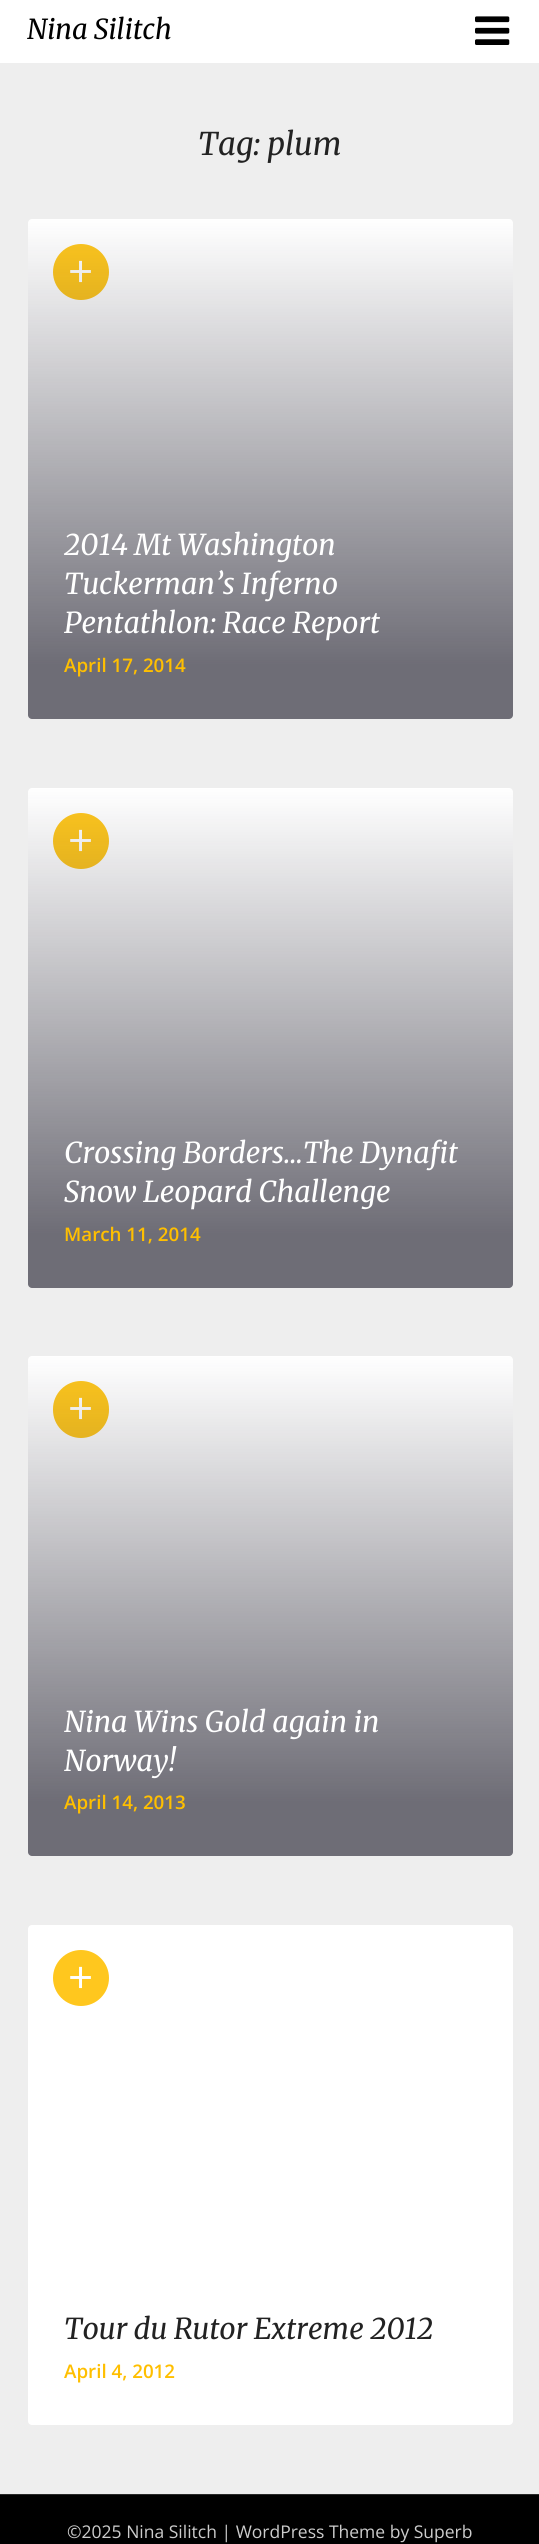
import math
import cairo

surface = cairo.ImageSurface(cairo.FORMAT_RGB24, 539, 2544)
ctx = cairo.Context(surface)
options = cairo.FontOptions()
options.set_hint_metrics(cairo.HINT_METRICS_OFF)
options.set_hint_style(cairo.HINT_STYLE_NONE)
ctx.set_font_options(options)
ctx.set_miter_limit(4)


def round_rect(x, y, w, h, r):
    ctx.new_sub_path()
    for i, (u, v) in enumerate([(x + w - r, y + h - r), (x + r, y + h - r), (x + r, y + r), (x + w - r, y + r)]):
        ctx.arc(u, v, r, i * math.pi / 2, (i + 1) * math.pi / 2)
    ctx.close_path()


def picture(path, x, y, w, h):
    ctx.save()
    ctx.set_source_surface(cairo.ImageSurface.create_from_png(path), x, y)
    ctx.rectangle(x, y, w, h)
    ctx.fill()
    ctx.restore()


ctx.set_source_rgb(0.933, 0.933, 0.933)
ctx.paint()
ctx.set_source_rgb(1, 1, 1)
ctx.rectangle(0, 0, 539, 63)
ctx.fill()
ctx.select_font_face("Merriweather Light", cairo.FONT_SLANT_ITALIC)
ctx.set_font_size(27.5)
ctx.set_source_rgb(0, 0, 0)
ctx.move_to(27, 39)
ctx.show_text("Nina Silitch")
picture("img1.png", 475, 16, 35, 29)
ctx.set_font_size(31.25)
ctx.set_source_rgb(0.133, 0.133, 0.133)
ctx.move_to(198, 155)
ctx.show_text("Tag: plum")
ctx.set_source_rgb(1, 1, 1)
round_rect(28, 219, 485, 500, 4)
ctx.fill()
ctx.set_source_rgb(1, 0.78, 0.118)
ctx.arc(81, 272, 28, 0, 2 * math.pi)
ctx.fill()
ctx.select_font_face("Open Sans")
ctx.set_font_size(44)
ctx.set_source_rgb(1, 1, 1)
ctx.move_to(68, 287)
ctx.show_text("+")
gradient = cairo.LinearGradient(270, 219, 270, 719)
gradient.add_color_stop_rgba(0, 0.125, 0.118, 0.173, 0)
gradient.add_color_stop_rgba(0.88, 0.125, 0.118, 0.173, 0.64)
gradient.add_color_stop_rgba(0.89, 0.125, 0.118, 0.173, 0.65)
ctx.set_source(gradient)
round_rect(28, 219, 485, 500, 4)
ctx.fill()
ctx.select_font_face("Merriweather Light", cairo.FONT_SLANT_ITALIC)
ctx.set_font_size(28.75)
ctx.set_source_rgb(1, 1, 1)
ctx.move_to(64, 555)
ctx.show_text("2014 Mt Washington")
ctx.move_to(64, 594)
ctx.show_text("Tuckerman’s Inferno")
ctx.move_to(64, 633)
ctx.show_text("Pentathlon: Race Report")
ctx.select_font_face("Open Sans SemiBold")
ctx.set_font_size(18.75)
ctx.set_source_rgb(1, 0.749, 0)
ctx.move_to(64, 672)
ctx.show_text("April 17, 2014")
ctx.set_source_rgb(1, 1, 1)
round_rect(28, 788, 485, 500, 4)
ctx.fill()
ctx.set_source_rgb(1, 0.78, 0.118)
ctx.arc(81, 841, 28, 0, 2 * math.pi)
ctx.fill()
ctx.select_font_face("Open Sans")
ctx.set_font_size(44)
ctx.set_source_rgb(1, 1, 1)
ctx.move_to(68, 856)
ctx.show_text("+")
gradient = cairo.LinearGradient(270, 788, 270, 1288)
gradient.add_color_stop_rgba(0, 0.125, 0.118, 0.173, 0)
gradient.add_color_stop_rgba(0.88, 0.125, 0.118, 0.173, 0.64)
gradient.add_color_stop_rgba(0.89, 0.125, 0.118, 0.173, 0.65)
ctx.set_source(gradient)
round_rect(28, 788, 485, 500, 4)
ctx.fill()
ctx.select_font_face("Merriweather Light", cairo.FONT_SLANT_ITALIC)
ctx.set_font_size(28.75)
ctx.set_source_rgb(1, 1, 1)
ctx.move_to(64, 1163)
ctx.show_text("Crossing Borders…The Dynafit")
ctx.move_to(64, 1202)
ctx.show_text("Snow Leopard Challenge")
ctx.select_font_face("Open Sans SemiBold")
ctx.set_font_size(18.75)
ctx.set_source_rgb(1, 0.749, 0)
ctx.move_to(64, 1241)
ctx.show_text("March 11, 2014")
ctx.set_source_rgb(1, 1, 1)
round_rect(28, 1356, 485, 500, 4)
ctx.fill()
ctx.set_source_rgb(1, 0.78, 0.118)
round_rect(53, 1381, 56, 57, 28)
ctx.fill()
ctx.select_font_face("Open Sans")
ctx.set_font_size(44)
ctx.set_source_rgb(1, 1, 1)
ctx.move_to(68, 1424)
ctx.show_text("+")
gradient = cairo.LinearGradient(270, 1356, 270, 1856)
gradient.add_color_stop_rgba(0, 0.125, 0.118, 0.173, 0)
gradient.add_color_stop_rgba(0.88, 0.125, 0.118, 0.173, 0.64)
gradient.add_color_stop_rgba(0.89, 0.125, 0.118, 0.173, 0.65)
ctx.set_source(gradient)
round_rect(28, 1356, 485, 500, 4)
ctx.fill()
ctx.select_font_face("Merriweather Light", cairo.FONT_SLANT_ITALIC)
ctx.set_font_size(28.75)
ctx.set_source_rgb(1, 1, 1)
ctx.move_to(64, 1732)
ctx.show_text("Nina Wins Gold again in")
ctx.move_to(64, 1771)
ctx.show_text("Norway!")
ctx.select_font_face("Open Sans SemiBold")
ctx.set_font_size(18.75)
ctx.set_source_rgb(1, 0.749, 0)
ctx.move_to(64, 1809)
ctx.show_text("April 14, 2013")
ctx.set_source_rgb(1, 1, 1)
round_rect(28, 1925, 485, 500, 4)
ctx.fill()
ctx.set_source_rgb(1, 0.78, 0.118)
ctx.arc(81, 1978, 28, 0, 2 * math.pi)
ctx.fill()
ctx.select_font_face("Open Sans")
ctx.set_font_size(44)
ctx.set_source_rgb(1, 1, 1)
ctx.move_to(68, 1993)
ctx.show_text("+")
ctx.select_font_face("Merriweather Light", cairo.FONT_SLANT_ITALIC)
ctx.set_font_size(28.75)
ctx.set_source_rgb(0.133, 0.133, 0.133)
ctx.move_to(64, 2339)
ctx.show_text("Tour du Rutor Extreme 2012")
ctx.select_font_face("Open Sans SemiBold")
ctx.set_font_size(18.75)
ctx.set_source_rgb(1, 0.749, 0)
ctx.move_to(64, 2378)
ctx.show_text("April 4, 2012")
ctx.set_source_rgb(0, 0, 0)
ctx.rectangle(0, 2495, 539, 49)
ctx.fill()
ctx.set_source_rgb(0.161, 0.161, 0.161)
ctx.rectangle(0, 2494, 539, 1)
ctx.fill()
ctx.select_font_face("Open Sans")
ctx.set_font_size(17.5)
ctx.set_source_rgb(0.8, 0.8, 0.8)
ctx.move_to(67, 2538)
ctx.show_text("©2025 Nina Silitch | WordPress Theme by Superb")
surface.write_to_png("page.png")
